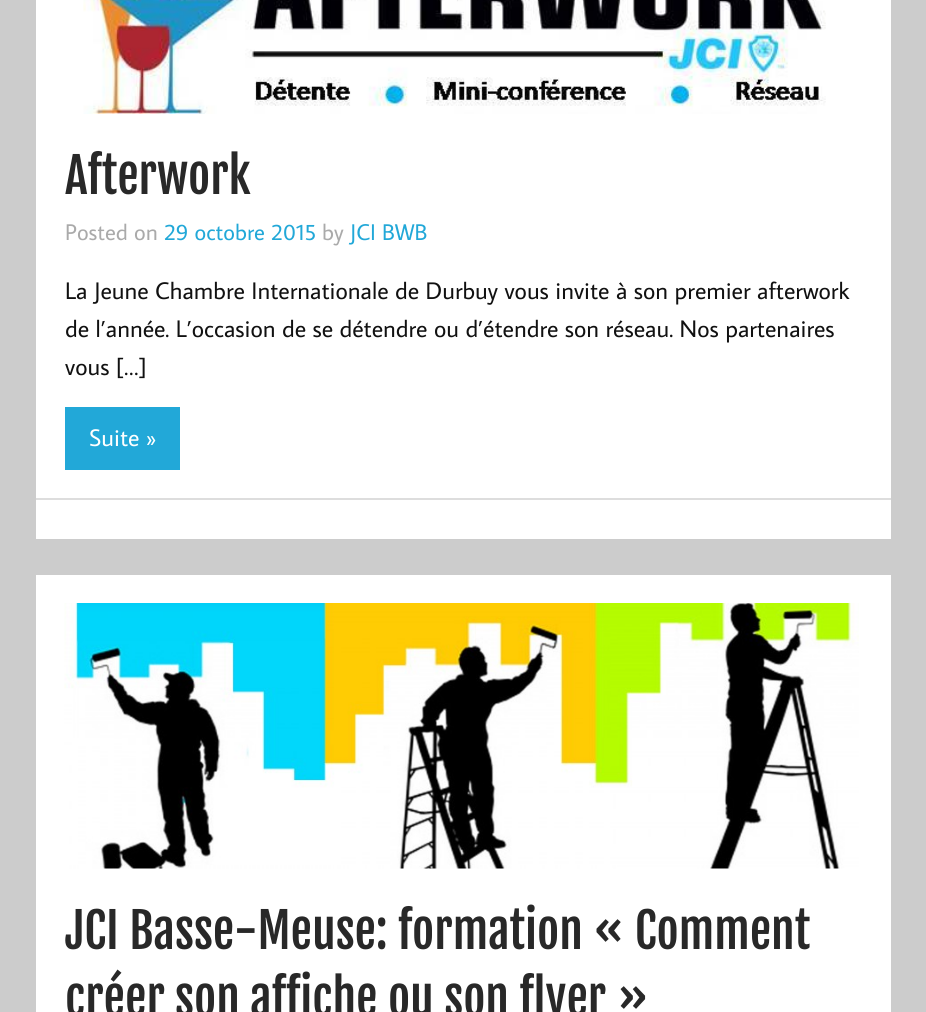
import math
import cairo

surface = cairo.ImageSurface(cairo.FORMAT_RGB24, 926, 1012)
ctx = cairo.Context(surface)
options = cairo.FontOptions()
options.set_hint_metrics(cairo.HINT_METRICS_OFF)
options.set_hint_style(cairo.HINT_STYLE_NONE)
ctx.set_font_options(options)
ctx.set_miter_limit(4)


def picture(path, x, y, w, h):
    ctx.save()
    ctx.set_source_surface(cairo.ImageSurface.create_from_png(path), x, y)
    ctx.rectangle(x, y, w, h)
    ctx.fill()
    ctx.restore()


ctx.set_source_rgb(0.8, 0.8, 0.8)
ctx.paint()
ctx.set_source_rgb(1, 1, 1)
ctx.rectangle(36, 0, 855, 539)
ctx.fill()
picture("img1.png", 83, 0, 743, 114)
ctx.select_font_face("Fjalla One")
ctx.set_font_size(48)
ctx.set_source_rgb(0.157, 0.157, 0.157)
ctx.move_to(65, 194)
ctx.show_text("Afterwork")
ctx.select_font_face("Average Sans")
ctx.set_font_size(22.75)
ctx.set_source_rgb(0.667, 0.667, 0.667)
ctx.move_to(65, 240)
ctx.show_text("Posted on")
ctx.set_source_rgb(0.133, 0.659, 0.847)
ctx.move_to(164, 240)
ctx.show_text("29 octobre 2015")
ctx.set_source_rgb(0.667, 0.667, 0.667)
ctx.move_to(322, 240)
ctx.show_text("by")
ctx.set_source_rgb(0.133, 0.659, 0.847)
ctx.move_to(350, 240)
ctx.show_text("JCI BWB")
ctx.set_font_size(24)
ctx.set_source_rgb(0.067, 0.067, 0.067)
ctx.move_to(65, 299)
ctx.show_text("La Jeune Chambre Internationale de Durbuy vous invite à son premier afterwork")
ctx.move_to(65, 337)
ctx.show_text("de l’année. L’occasion de se détendre ou d’étendre son réseau. Nos partenaires")
ctx.move_to(65, 375)
ctx.show_text("vous […]")
ctx.set_source_rgb(0.133, 0.659, 0.847)
ctx.rectangle(65, 407, 115, 63)
ctx.fill()
ctx.set_source_rgb(1, 1, 1)
ctx.move_to(89, 446)
ctx.show_text("Suite »")
ctx.set_source_rgb(0.867, 0.867, 0.867)
ctx.rectangle(36, 498, 855, 2)
ctx.fill()
ctx.set_source_rgb(1, 1, 1)
ctx.rectangle(36, 575, 855, 437)
ctx.fill()
picture("img2.png", 64, 603, 795, 266)
ctx.select_font_face("Fjalla One")
ctx.set_font_size(48)
ctx.set_source_rgb(0.157, 0.157, 0.157)
ctx.move_to(65, 949)
ctx.show_text("JCI Basse-Meuse: formation « Comment")
ctx.move_to(65, 1016)
ctx.show_text("créer son affiche ou son flyer »")
surface.write_to_png("page.png")
